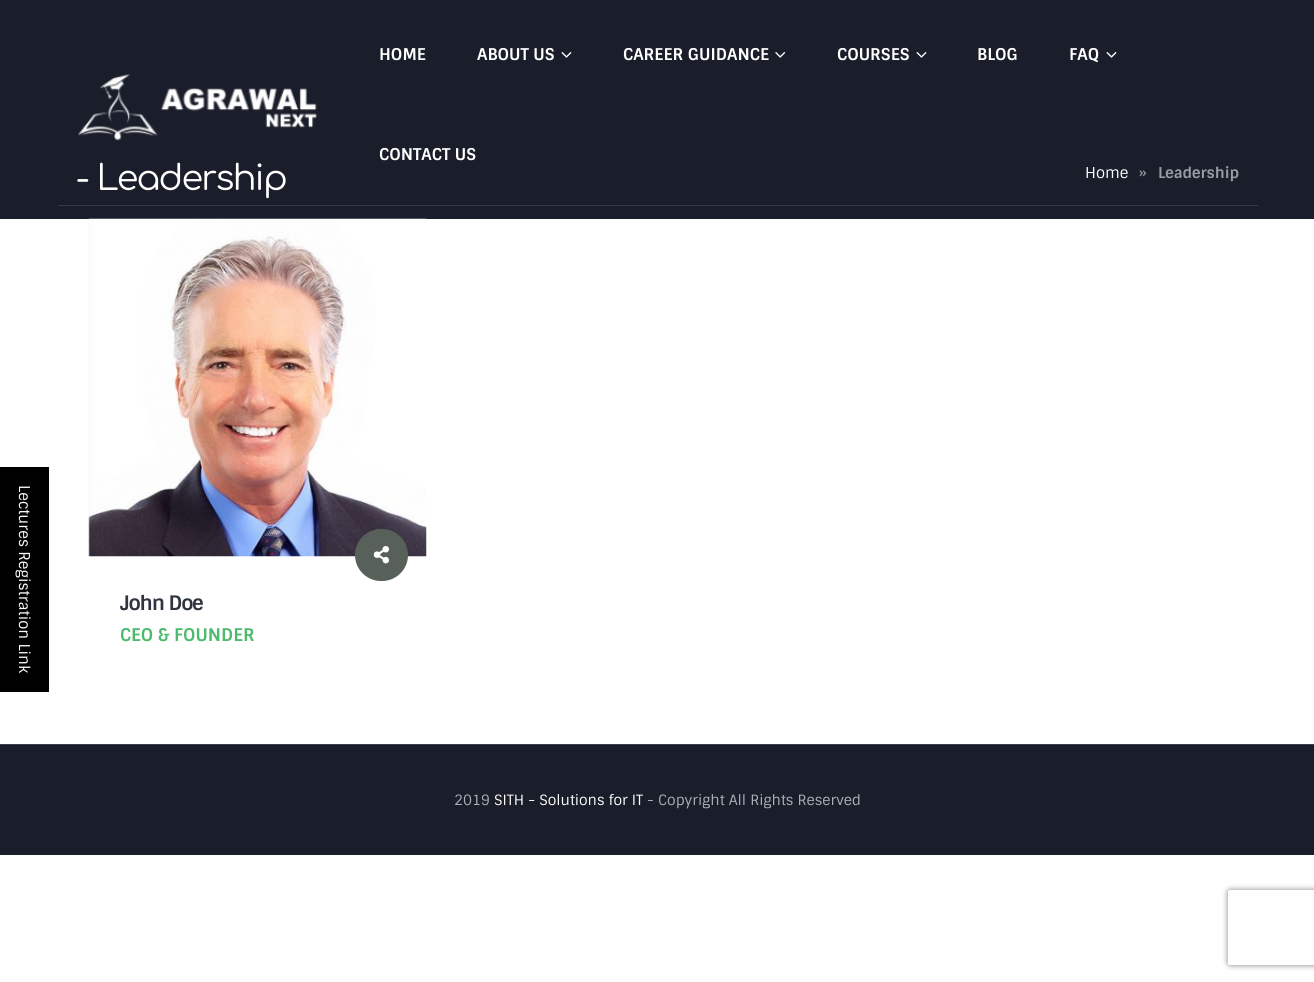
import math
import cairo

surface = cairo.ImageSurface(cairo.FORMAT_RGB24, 1314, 982)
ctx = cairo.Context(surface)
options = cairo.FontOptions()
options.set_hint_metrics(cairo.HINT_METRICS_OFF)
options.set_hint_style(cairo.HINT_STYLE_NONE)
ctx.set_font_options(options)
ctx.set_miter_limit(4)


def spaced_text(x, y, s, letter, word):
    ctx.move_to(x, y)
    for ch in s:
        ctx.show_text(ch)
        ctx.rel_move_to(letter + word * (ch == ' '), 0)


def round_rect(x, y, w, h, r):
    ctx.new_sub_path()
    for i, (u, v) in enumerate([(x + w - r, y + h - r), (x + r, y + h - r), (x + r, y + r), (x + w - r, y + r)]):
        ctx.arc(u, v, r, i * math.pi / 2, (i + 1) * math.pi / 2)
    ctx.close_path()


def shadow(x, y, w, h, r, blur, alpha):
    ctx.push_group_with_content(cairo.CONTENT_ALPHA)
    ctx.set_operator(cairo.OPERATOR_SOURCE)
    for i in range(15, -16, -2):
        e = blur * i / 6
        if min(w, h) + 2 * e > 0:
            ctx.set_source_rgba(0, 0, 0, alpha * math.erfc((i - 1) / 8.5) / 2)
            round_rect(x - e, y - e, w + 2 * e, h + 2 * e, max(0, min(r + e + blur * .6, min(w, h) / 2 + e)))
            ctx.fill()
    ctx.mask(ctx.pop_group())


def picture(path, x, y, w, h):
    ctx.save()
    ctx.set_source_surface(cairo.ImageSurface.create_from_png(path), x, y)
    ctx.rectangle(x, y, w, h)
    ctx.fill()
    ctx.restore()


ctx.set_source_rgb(1, 1, 1)
ctx.paint()
ctx.set_source_rgb(0, 0, 0)
ctx.rectangle(0, 467, 49, 225)
ctx.fill()
ctx.select_font_face("Sintony")
ctx.set_font_size(15)
ctx.set_source_rgb(1, 1, 1)
ctx.save()
ctx.translate(19, 485)
ctx.rotate(90 * math.pi / 180)
ctx.move_to(0, 0)
ctx.show_text("Lectures Registration Link")
ctx.restore()
ctx.set_source_rgb(0.102, 0.118, 0.165)
ctx.rectangle(0, 0, 1314, 219)
ctx.fill()
ctx.set_source_rgb(0.208, 0.224, 0.267)
ctx.rectangle(58, 205, 1200, 1)
ctx.fill()
picture("img1.png", 77, 73, 240, 68)
ctx.select_font_face("Sintony", cairo.FONT_SLANT_NORMAL, cairo.FONT_WEIGHT_BOLD)
ctx.set_font_size(16.25)
ctx.set_source_rgb(1, 1, 1)
ctx.move_to(379, 60)
ctx.show_text("HOME")
ctx.move_to(477, 60)
ctx.show_text("ABOUT US")
picture("img2.png", 561, 52, 11, 6)
ctx.move_to(623, 60)
ctx.show_text("CAREER GUIDANCE")
picture("img3.png", 775, 52, 11, 6)
ctx.move_to(837, 60)
ctx.show_text("COURSES")
picture("img2.png", 916, 52, 11, 6)
ctx.move_to(977, 60)
ctx.show_text("BLOG")
ctx.move_to(1069, 60)
ctx.show_text("FAQ")
picture("img2.png", 1106, 52, 11, 6)
ctx.move_to(379, 160)
ctx.show_text("CONTACT US")
ctx.select_font_face("Comfortaa")
ctx.set_font_size(35)
spaced_text(76, 190, "- Leadership", -1.75, 0)
ctx.select_font_face("Sintony")
ctx.set_font_size(15)
ctx.move_to(1085, 178)
ctx.show_text("Home")
ctx.set_source_rgb(0.6, 0.616, 0.639)
ctx.move_to(1139, 178)
ctx.show_text("»")
ctx.select_font_face("Sintony", cairo.FONT_SLANT_NORMAL, cairo.FONT_WEIGHT_BOLD)
ctx.move_to(1158, 178)
ctx.show_text("Leadership")
picture("img4.png", 88, 218, 339, 339)
picture("img6.png", 382, 580, 4, 1)
ctx.set_source_rgb(0.345, 0.376, 0.353)
round_rect(355, 529, 53, 52, 26)
ctx.fill()
picture("img5.png", 373, 546, 16, 18)
ctx.set_font_size(20)
ctx.set_source_rgb(0.18, 0.208, 0.243)
spaced_text(120, 610, "John Doe", -1, 0)
ctx.set_font_size(17.5)
ctx.set_source_rgb(0.302, 0.733, 0.427)
ctx.move_to(120, 641)
ctx.show_text("CEO & FOUNDER")
ctx.set_source_rgb(0.102, 0.118, 0.165)
ctx.rectangle(0, 745, 1314, 110)
ctx.fill()
ctx.set_source_rgb(0.235, 0.243, 0.286)
ctx.rectangle(0, 744, 1314, 1)
ctx.fill()
ctx.select_font_face("Sintony")
ctx.set_font_size(14.2)
ctx.set_source_rgb(0.659, 0.694, 0.722)
ctx.move_to(454, 805)
ctx.show_text("2019")
ctx.set_source_rgb(1, 1, 1)
ctx.move_to(494, 805)
ctx.show_text("SITH - Solutions for IT")
ctx.set_source_rgb(0.659, 0.694, 0.722)
ctx.move_to(647, 805)
ctx.show_text("- Copyright All Rights Reserved")
ctx.save()
ctx.set_fill_rule(cairo.FILL_RULE_EVEN_ODD)
ctx.new_path()
ctx.move_to(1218, 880)
ctx.line_to(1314, 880)
ctx.line_to(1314, 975)
ctx.line_to(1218, 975)
ctx.close_path()
ctx.move_to(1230.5, 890)
ctx.line_to(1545.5, 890)
ctx.curve_to(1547, 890, 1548, 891, 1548, 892.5)
ctx.line_to(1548, 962.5)
ctx.curve_to(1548, 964, 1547, 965, 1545.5, 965)
ctx.line_to(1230.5, 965)
ctx.curve_to(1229, 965, 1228, 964, 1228, 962.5)
ctx.line_to(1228, 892.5)
ctx.curve_to(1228, 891, 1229, 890, 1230.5, 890)
ctx.close_path()
ctx.clip()
ctx.set_source_rgb(0.502, 0.502, 0.502)
shadow(1228, 890, 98, 75, 2.5, 3, 1)
ctx.restore()
surface.write_to_png("page.png")
